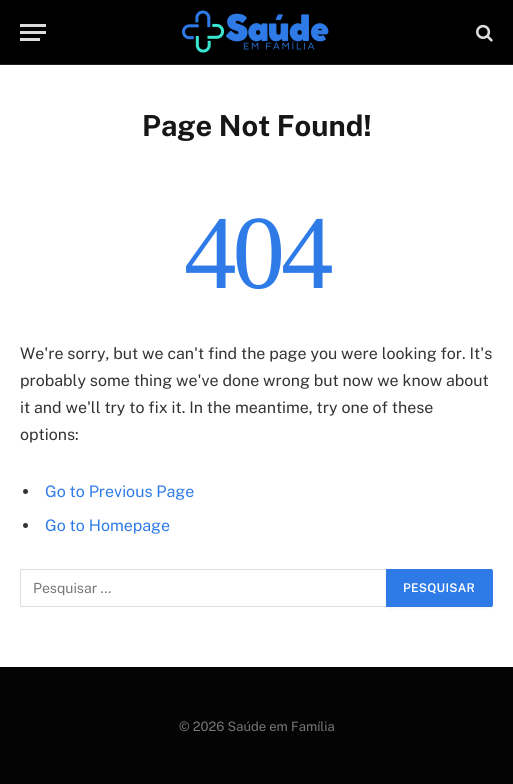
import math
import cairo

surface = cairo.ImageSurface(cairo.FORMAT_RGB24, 513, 784)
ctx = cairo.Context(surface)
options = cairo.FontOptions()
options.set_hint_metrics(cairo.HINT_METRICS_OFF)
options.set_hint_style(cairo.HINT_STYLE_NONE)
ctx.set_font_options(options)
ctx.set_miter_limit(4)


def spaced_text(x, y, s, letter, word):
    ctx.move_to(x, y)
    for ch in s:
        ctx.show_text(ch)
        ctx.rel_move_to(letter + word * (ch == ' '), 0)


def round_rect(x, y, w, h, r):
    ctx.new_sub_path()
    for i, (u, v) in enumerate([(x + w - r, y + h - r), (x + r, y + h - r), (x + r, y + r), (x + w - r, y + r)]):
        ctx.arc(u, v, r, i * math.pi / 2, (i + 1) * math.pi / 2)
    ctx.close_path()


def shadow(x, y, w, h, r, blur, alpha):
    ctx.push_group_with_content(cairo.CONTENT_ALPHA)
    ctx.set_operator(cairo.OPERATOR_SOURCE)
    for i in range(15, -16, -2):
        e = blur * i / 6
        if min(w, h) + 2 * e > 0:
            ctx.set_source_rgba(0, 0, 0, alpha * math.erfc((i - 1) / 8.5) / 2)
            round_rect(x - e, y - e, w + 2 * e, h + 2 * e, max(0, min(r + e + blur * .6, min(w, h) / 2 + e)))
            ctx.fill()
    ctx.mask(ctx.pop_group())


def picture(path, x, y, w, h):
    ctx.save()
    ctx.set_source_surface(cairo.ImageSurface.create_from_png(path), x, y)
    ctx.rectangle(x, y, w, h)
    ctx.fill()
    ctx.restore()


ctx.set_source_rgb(1, 1, 1)
ctx.paint()
ctx.set_source_rgb(0, 0, 0)
ctx.rectangle(0, 0, 513, 64)
ctx.fill()
ctx.set_source_rgb(0.133, 0.133, 0.133)
ctx.rectangle(0, 64, 513, 1)
ctx.fill()
ctx.set_source_rgb(0.867, 0.867, 0.867)
ctx.rectangle(20, 38, 20, 3)
ctx.fill()
ctx.rectangle(20, 24, 26, 3)
ctx.fill()
ctx.rectangle(20, 31, 26, 3)
ctx.fill()
picture("img1.png", 182, 10, 147, 43)
picture("img2.png", 476, 24, 17, 18)
ctx.select_font_face("Public Sans", cairo.FONT_SLANT_NORMAL, cairo.FONT_WEIGHT_BOLD)
ctx.set_font_size(29)
ctx.set_source_rgb(0.086, 0.086, 0.086)
ctx.move_to(142, 136)
ctx.show_text("Page Not Found!")
ctx.select_font_face("Liberation Serif")
ctx.set_font_size(105)
ctx.set_source_rgb(0.18, 0.482, 0.91)
spaced_text(184, 288, "404", -4, 0)
ctx.select_font_face("Public Sans")
ctx.set_font_size(15.95)
ctx.set_source_rgb(0.2, 0.2, 0.2)
ctx.move_to(20, 359)
ctx.show_text("We're sorry, but we can't find the page you were looking for. It's")
ctx.move_to(20, 386)
ctx.show_text("probably some thing we've done wrong but now we know about")
ctx.move_to(20, 413)
ctx.show_text("it and we'll try to fix it. In the meantime, try one of these")
ctx.move_to(20, 440)
ctx.show_text("options:")
ctx.new_path()
ctx.arc(25.5, 491.5, 2.5, 0, 2 * math.pi)
ctx.fill()
ctx.set_source_rgb(0.18, 0.482, 0.91)
ctx.move_to(45, 497)
ctx.show_text("Go to Previous Page")
ctx.set_source_rgb(0.2, 0.2, 0.2)
ctx.new_path()
ctx.arc(25.5, 525.5, 2.5, 0, 2 * math.pi)
ctx.fill()
ctx.set_source_rgb(0.18, 0.482, 0.91)
ctx.move_to(45, 531)
ctx.show_text("Go to Homepage")
round_rect(20.5, 569.5, 367, 37, 1.5)
ctx.set_source_rgb(0.867, 0.867, 0.867)
ctx.set_line_width(1)
ctx.stroke()
ctx.set_font_size(14)
ctx.set_source_rgb(0.467, 0.467, 0.467)
ctx.move_to(33, 593)
ctx.show_text("Pesquisar …")
ctx.set_source_rgb(0, 0, 0)
shadow(390, 575, 99, 30, 0, 3.5, 0.16)
ctx.set_source_rgb(0.18, 0.482, 0.91)
ctx.new_path()
ctx.move_to(386, 569)
ctx.line_to(491, 569)
ctx.curve_to(492, 569, 493, 570, 493, 571)
ctx.line_to(493, 605)
ctx.curve_to(493, 606, 492, 607, 491, 607)
ctx.line_to(386, 607)
ctx.close_path()
ctx.fill()
ctx.select_font_face("Public Sans SemiBold")
ctx.set_font_size(12)
ctx.set_source_rgb(1, 1, 1)
spaced_text(403, 592, "PESQUISAR", 0.25, 0)
ctx.set_source_rgb(0.016, 0.016, 0.016)
ctx.rectangle(0, 667, 513, 117)
ctx.fill()
ctx.select_font_face("Public Sans")
ctx.set_font_size(13)
ctx.set_source_rgb(0.467, 0.467, 0.467)
ctx.move_to(179, 731)
ctx.show_text("© 2026 Saúde em Família")
surface.write_to_png("page.png")
